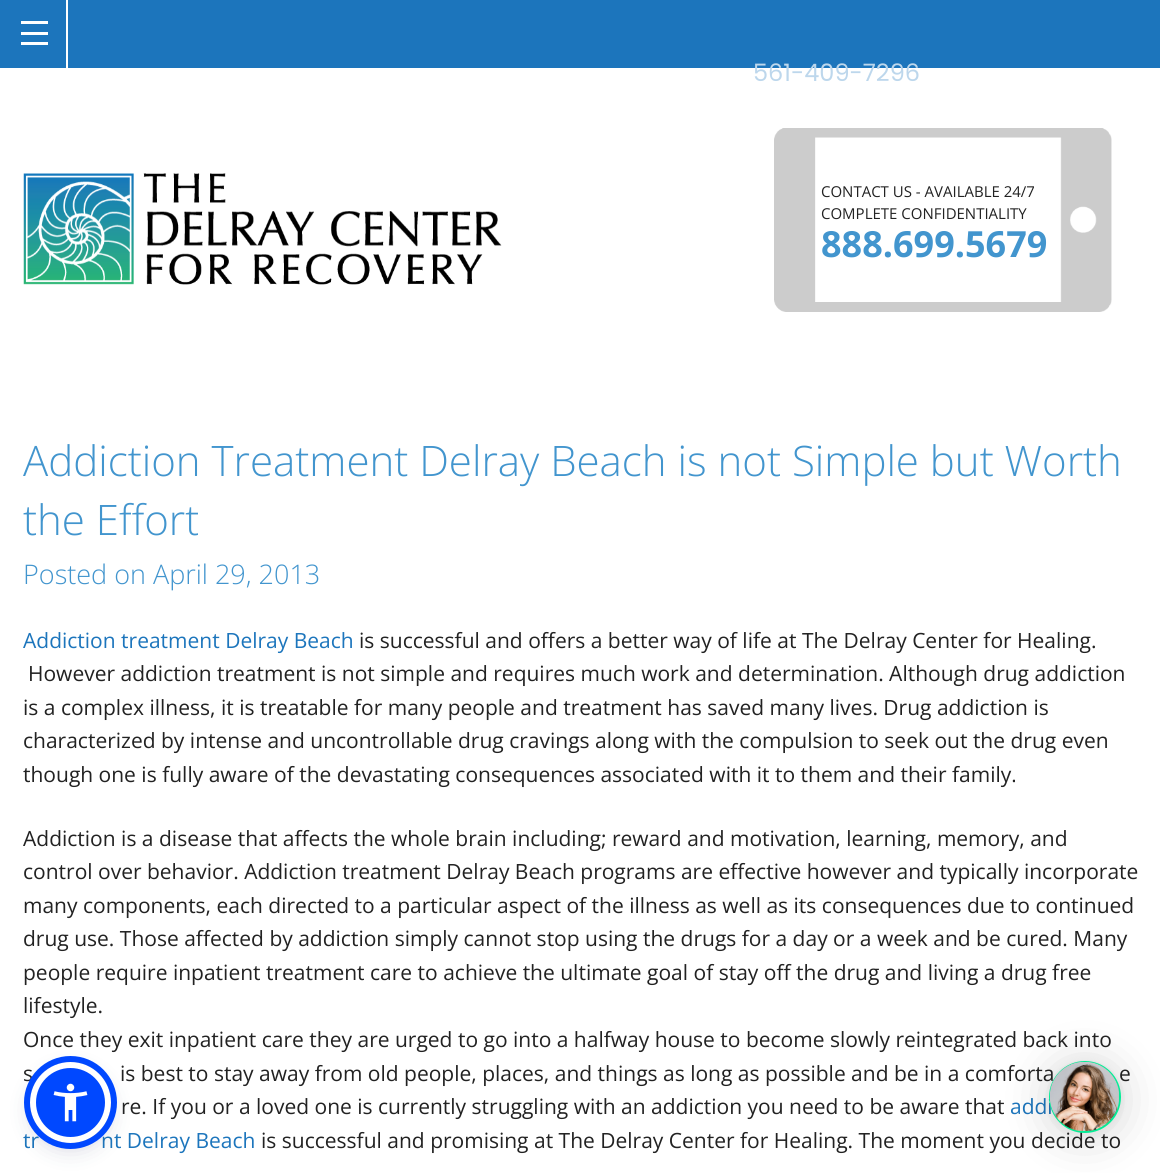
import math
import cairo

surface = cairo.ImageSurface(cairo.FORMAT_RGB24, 1160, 1173)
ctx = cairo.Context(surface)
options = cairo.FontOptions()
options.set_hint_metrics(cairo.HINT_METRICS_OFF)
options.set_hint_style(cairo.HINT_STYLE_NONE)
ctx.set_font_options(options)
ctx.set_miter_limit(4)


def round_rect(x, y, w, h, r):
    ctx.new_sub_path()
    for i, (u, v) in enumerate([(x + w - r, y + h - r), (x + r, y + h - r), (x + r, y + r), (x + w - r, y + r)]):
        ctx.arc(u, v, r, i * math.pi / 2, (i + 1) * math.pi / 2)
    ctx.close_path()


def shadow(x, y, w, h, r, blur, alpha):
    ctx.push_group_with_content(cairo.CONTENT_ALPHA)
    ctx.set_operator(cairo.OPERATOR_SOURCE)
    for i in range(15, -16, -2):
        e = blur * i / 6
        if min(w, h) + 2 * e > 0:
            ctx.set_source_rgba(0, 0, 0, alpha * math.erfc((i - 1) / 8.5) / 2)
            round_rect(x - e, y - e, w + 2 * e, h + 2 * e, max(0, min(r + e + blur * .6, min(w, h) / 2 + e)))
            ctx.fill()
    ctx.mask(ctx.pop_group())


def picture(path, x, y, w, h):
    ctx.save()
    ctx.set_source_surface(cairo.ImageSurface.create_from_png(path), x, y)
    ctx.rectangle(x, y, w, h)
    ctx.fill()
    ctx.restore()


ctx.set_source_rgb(1, 1, 1)
ctx.paint()
ctx.set_source_rgb(0.11, 0.459, 0.737)
ctx.rectangle(0, 0, 1160, 68)
ctx.fill()
ctx.select_font_face("Poppins")
ctx.set_font_size(24)
ctx.set_source_rgb(0.741, 0.843, 0.925)
ctx.move_to(753, 81)
ctx.show_text("561-409-7296")
ctx.set_source_rgb(1, 1, 1)
ctx.rectangle(66, 0, 2, 68)
ctx.fill()
ctx.rectangle(21, 42, 27, 3)
ctx.fill()
ctx.rectangle(21, 32, 27, 3)
ctx.fill()
ctx.rectangle(21, 21, 27, 3)
ctx.fill()
picture("img1.png", 23, 173, 479, 112)
picture("img2.png", 774, 128, 338, 184)
ctx.select_font_face("Open Sans")
ctx.set_font_size(15)
ctx.set_source_rgb(0.133, 0.133, 0.133)
ctx.move_to(821, 197)
ctx.show_text("CONTACT US - AVAILABLE 24/7")
ctx.move_to(821, 219)
ctx.show_text("COMPLETE CONFIDENTIALITY")
ctx.select_font_face("Open Sans", cairo.FONT_SLANT_NORMAL, cairo.FONT_WEIGHT_BOLD)
ctx.set_font_size(36)
ctx.set_source_rgb(0.259, 0.584, 0.808)
ctx.move_to(821, 257)
ctx.show_text("888.699.5679")
ctx.select_font_face("Open Sans Light")
ctx.set_font_size(42)
ctx.move_to(23, 476)
ctx.show_text("Addiction Treatment Delray Beach is not Simple but Worth")
ctx.move_to(23, 535)
ctx.show_text("the Effort")
ctx.set_font_size(27)
ctx.move_to(23, 584)
ctx.show_text("Posted on April 29, 2013")
ctx.select_font_face("Open Sans")
ctx.set_font_size(21)
ctx.set_source_rgb(0.11, 0.459, 0.737)
ctx.move_to(23, 648)
ctx.show_text("Addiction treatment Delray Beach")
ctx.set_source_rgb(0.133, 0.133, 0.133)
ctx.move_to(359, 648)
ctx.show_text("is successful and offers a better way of life at The Delray Center for Healing.")
ctx.move_to(28, 681)
ctx.show_text("However addiction treatment is not simple and requires much work and determination. Although drug addiction")
ctx.move_to(23, 715)
ctx.show_text("is a complex illness, it is treatable for many people and treatment has saved many lives. Drug addiction is")
ctx.move_to(23, 748)
ctx.show_text("characterized by intense and uncontrollable drug cravings along with the compulsion to seek out the drug even")
ctx.move_to(23, 782)
ctx.show_text("though one is fully aware of the devastating consequences associated with it to them and their family.")
ctx.move_to(23, 846)
ctx.show_text("Addiction is a disease that affects the whole brain including; reward and motivation, learning, memory, and")
ctx.move_to(23, 879)
ctx.show_text("control over behavior. Addiction treatment Delray Beach programs are effective however and typically incorporate")
ctx.move_to(23, 913)
ctx.show_text("many components, each directed to a particular aspect of the illness as well as its consequences due to continued")
ctx.move_to(23, 946)
ctx.show_text("drug use. Those affected by addiction simply cannot stop using the drugs for a day or a week and be cured. Many")
ctx.move_to(23, 980)
ctx.show_text("people require inpatient treatment care to achieve the ultimate goal of stay off the drug and living a drug free")
ctx.move_to(23, 1013)
ctx.show_text("lifestyle.")
ctx.move_to(23, 1047)
ctx.show_text("Once they exit inpatient care they are urged to go into a halfway house to become slowly reintegrated back into")
ctx.move_to(23, 1081)
ctx.show_text("s")
ctx.move_to(120, 1081)
ctx.show_text("is best to stay away from old people, places, and things as long as possible and be in a comforta")
ctx.move_to(1119, 1081)
ctx.show_text("e")
ctx.move_to(121, 1114)
ctx.show_text("re. If you or a loved one is currently struggling with an addiction you need to be aware that")
ctx.set_source_rgb(0.11, 0.459, 0.737)
ctx.move_to(1010, 1114)
ctx.show_text("addi")
ctx.move_to(23, 1148)
ctx.show_text("tr")
ctx.move_to(101, 1148)
ctx.show_text("nt Delray Beach")
ctx.set_source_rgb(0.133, 0.133, 0.133)
ctx.move_to(261, 1148)
ctx.show_text("is successful and promising at The Delray Center for Healing. The moment you decide to")
ctx.set_source_rgb(0.365, 0.392, 0.58)
shadow(30, 1065, 81, 81, 40.5, 3, 0.2)
ctx.set_source_rgb(0.145, 0.173, 0.38)
shadow(30, 1070, 81, 81, 40.5, 11, 0.15)
ctx.set_source_rgb(0, 0.282, 1)
ctx.arc(70.5, 1102.5, 37.5, 0, 2 * math.pi)
ctx.fill_preserve()
ctx.set_source_rgb(1, 1, 1)
ctx.set_line_width(6)
ctx.stroke()
ctx.arc(70.5, 1102.5, 43.5, 0, 2 * math.pi)
ctx.set_source_rgb(0, 0.282, 1)
ctx.stroke()
picture("img3.png", 53, 1083, 35, 39)
ctx.set_source_rgb(0, 0, 0)
shadow(1049, 1064, 72, 72, 36, 24, 0.16)
shadow(1049, 1062, 72, 72, 36, 4.5, 0.06)
ctx.set_source_rgb(0.012, 0.929, 0.588)
ctx.arc(1085, 1097, 36, 0, 2 * math.pi)
ctx.fill()
picture("img4.png", 1050, 1062, 69, 69)
surface.write_to_png("page.png")
